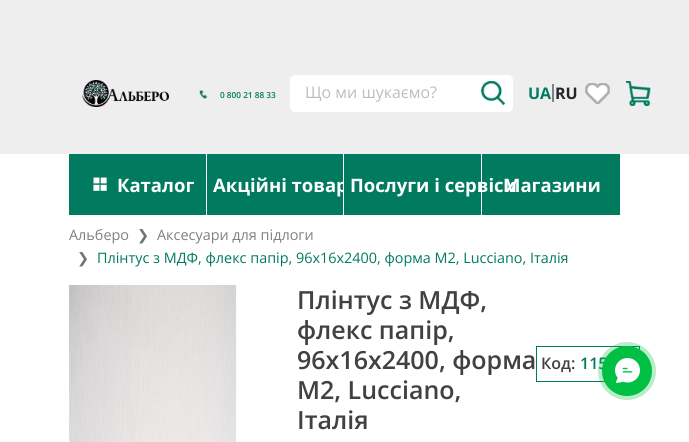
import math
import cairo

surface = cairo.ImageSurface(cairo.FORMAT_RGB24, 689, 442)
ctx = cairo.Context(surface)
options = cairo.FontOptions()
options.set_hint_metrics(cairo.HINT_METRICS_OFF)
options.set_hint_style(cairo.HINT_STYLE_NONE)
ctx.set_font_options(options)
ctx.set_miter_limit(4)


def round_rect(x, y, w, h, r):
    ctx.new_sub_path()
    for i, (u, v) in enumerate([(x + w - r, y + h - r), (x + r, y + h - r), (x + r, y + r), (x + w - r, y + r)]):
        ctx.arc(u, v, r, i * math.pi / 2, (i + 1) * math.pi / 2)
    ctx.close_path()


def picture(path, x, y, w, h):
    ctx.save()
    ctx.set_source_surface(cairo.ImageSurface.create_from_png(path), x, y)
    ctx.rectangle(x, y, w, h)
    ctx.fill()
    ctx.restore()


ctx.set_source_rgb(1, 1, 1)
ctx.paint()
ctx.set_source_rgb(0.933, 0.933, 0.933)
ctx.rectangle(0, 0, 689, 154)
ctx.fill()
picture("img1.png", 82, 80, 87, 27)
picture("img2.png", 199, 90, 9, 9)
ctx.select_font_face("Open Sans SemiBold")
ctx.set_font_size(8.25)
ctx.set_source_rgb(0, 0.482, 0.373)
ctx.move_to(220, 98)
ctx.show_text("0 800 21 88 33")
ctx.set_source_rgb(1, 1, 1)
round_rect(290, 75, 223, 37, 5)
ctx.fill()
ctx.select_font_face("Open Sans")
ctx.set_font_size(16)
ctx.set_source_rgb(0.741, 0.741, 0.741)
ctx.move_to(305, 98)
ctx.show_text("Що ми шукаємо?")
picture("img3.png", 481, 81, 24, 24)
ctx.select_font_face("Open Sans", cairo.FONT_SLANT_NORMAL, cairo.FONT_WEIGHT_BOLD)
ctx.set_source_rgb(0, 0.482, 0.373)
ctx.move_to(528, 99)
ctx.show_text("UA")
ctx.set_source_rgb(0.502, 0.502, 0.502)
ctx.rectangle(552, 84, 2, 18)
ctx.fill()
ctx.set_source_rgb(0.129, 0.145, 0.161)
ctx.move_to(555, 99)
ctx.show_text("RU")
picture("img4.png", 585, 83, 25, 21)
picture("img5.png", 626, 81, 25, 25)
ctx.set_source_rgb(0, 0.482, 0.373)
ctx.rectangle(69, 154, 137, 61)
ctx.fill()
picture("img6.png", 93, 177, 14, 14)
ctx.set_font_size(18.5)
ctx.set_source_rgb(1, 1, 1)
ctx.move_to(117, 192)
ctx.show_text("Каталог")
ctx.set_source_rgb(0, 0.482, 0.373)
ctx.rectangle(207, 154, 136, 61)
ctx.fill()
ctx.set_source_rgb(1, 1, 1)
ctx.move_to(213, 192)
ctx.show_text("Акційні товар")
ctx.set_source_rgb(0, 0.482, 0.373)
ctx.rectangle(344, 154, 137, 61)
ctx.fill()
ctx.rectangle(482, 154, 138, 61)
ctx.fill()
ctx.set_source_rgb(1, 1, 1)
ctx.move_to(503, 192)
ctx.show_text("Магазини")
ctx.move_to(350, 192)
ctx.show_text("Послуги і сервіси")
ctx.select_font_face("Open Sans")
ctx.set_font_size(14.4)
ctx.set_source_rgb(0.502, 0.502, 0.502)
ctx.move_to(69, 240)
ctx.show_text("Альберо")
ctx.select_font_face("DejaVu Sans")
ctx.set_source_rgb(0.424, 0.459, 0.49)
ctx.move_to(137, 240)
ctx.show_text("❯")
ctx.select_font_face("Open Sans")
ctx.set_source_rgb(0.502, 0.502, 0.502)
ctx.move_to(157, 240)
ctx.show_text("Аксесуари для підлоги")
ctx.select_font_face("DejaVu Sans")
ctx.set_source_rgb(0.424, 0.459, 0.49)
ctx.move_to(77, 263)
ctx.show_text("❯")
ctx.select_font_face("Open Sans")
ctx.set_source_rgb(0, 0.482, 0.373)
ctx.move_to(97, 263)
ctx.show_text("Плінтус з МДФ, флекс папір, 96x16x2400, форма M2, Lucciano, Італія")
picture("img7.png", 69, 285, 168, 157)
ctx.select_font_face("Open Sans SemiBold")
ctx.set_font_size(25)
ctx.set_source_rgb(0.255, 0.255, 0.255)
ctx.move_to(297, 309)
ctx.show_text("Плінтус з МДФ,")
ctx.move_to(297, 339)
ctx.show_text("флекс папір,")
ctx.move_to(297, 369)
ctx.show_text("96x16x2400, форма")
ctx.move_to(297, 399)
ctx.show_text("M2, Lucciano,")
ctx.move_to(297, 429)
ctx.show_text("Італія")
ctx.rectangle(536.5, 346.5, 103, 35)
ctx.set_source_rgb(0, 0.482, 0.373)
ctx.set_line_width(1)
ctx.stroke()
ctx.set_font_size(16)
ctx.set_source_rgb(0.255, 0.255, 0.255)
ctx.move_to(541, 369)
ctx.show_text("Код:")
ctx.set_source_rgb(0, 0.482, 0.373)
ctx.move_to(580, 369)
ctx.show_text("115")
ctx.set_source_rgb(0, 0.749, 0.263)
ctx.new_path()
ctx.arc(627, 371, 25, 0, 2 * math.pi)
ctx.fill()
ctx.set_source_rgba(0, 0.749, 0.263, 0.15)
ctx.arc(627, 371, 29, 0, 2 * math.pi)
ctx.fill()
ctx.arc(627, 371, 29, 0, 2 * math.pi)
ctx.fill()
picture("img8.png", 615, 358, 25, 25)
surface.write_to_png("page.png")
